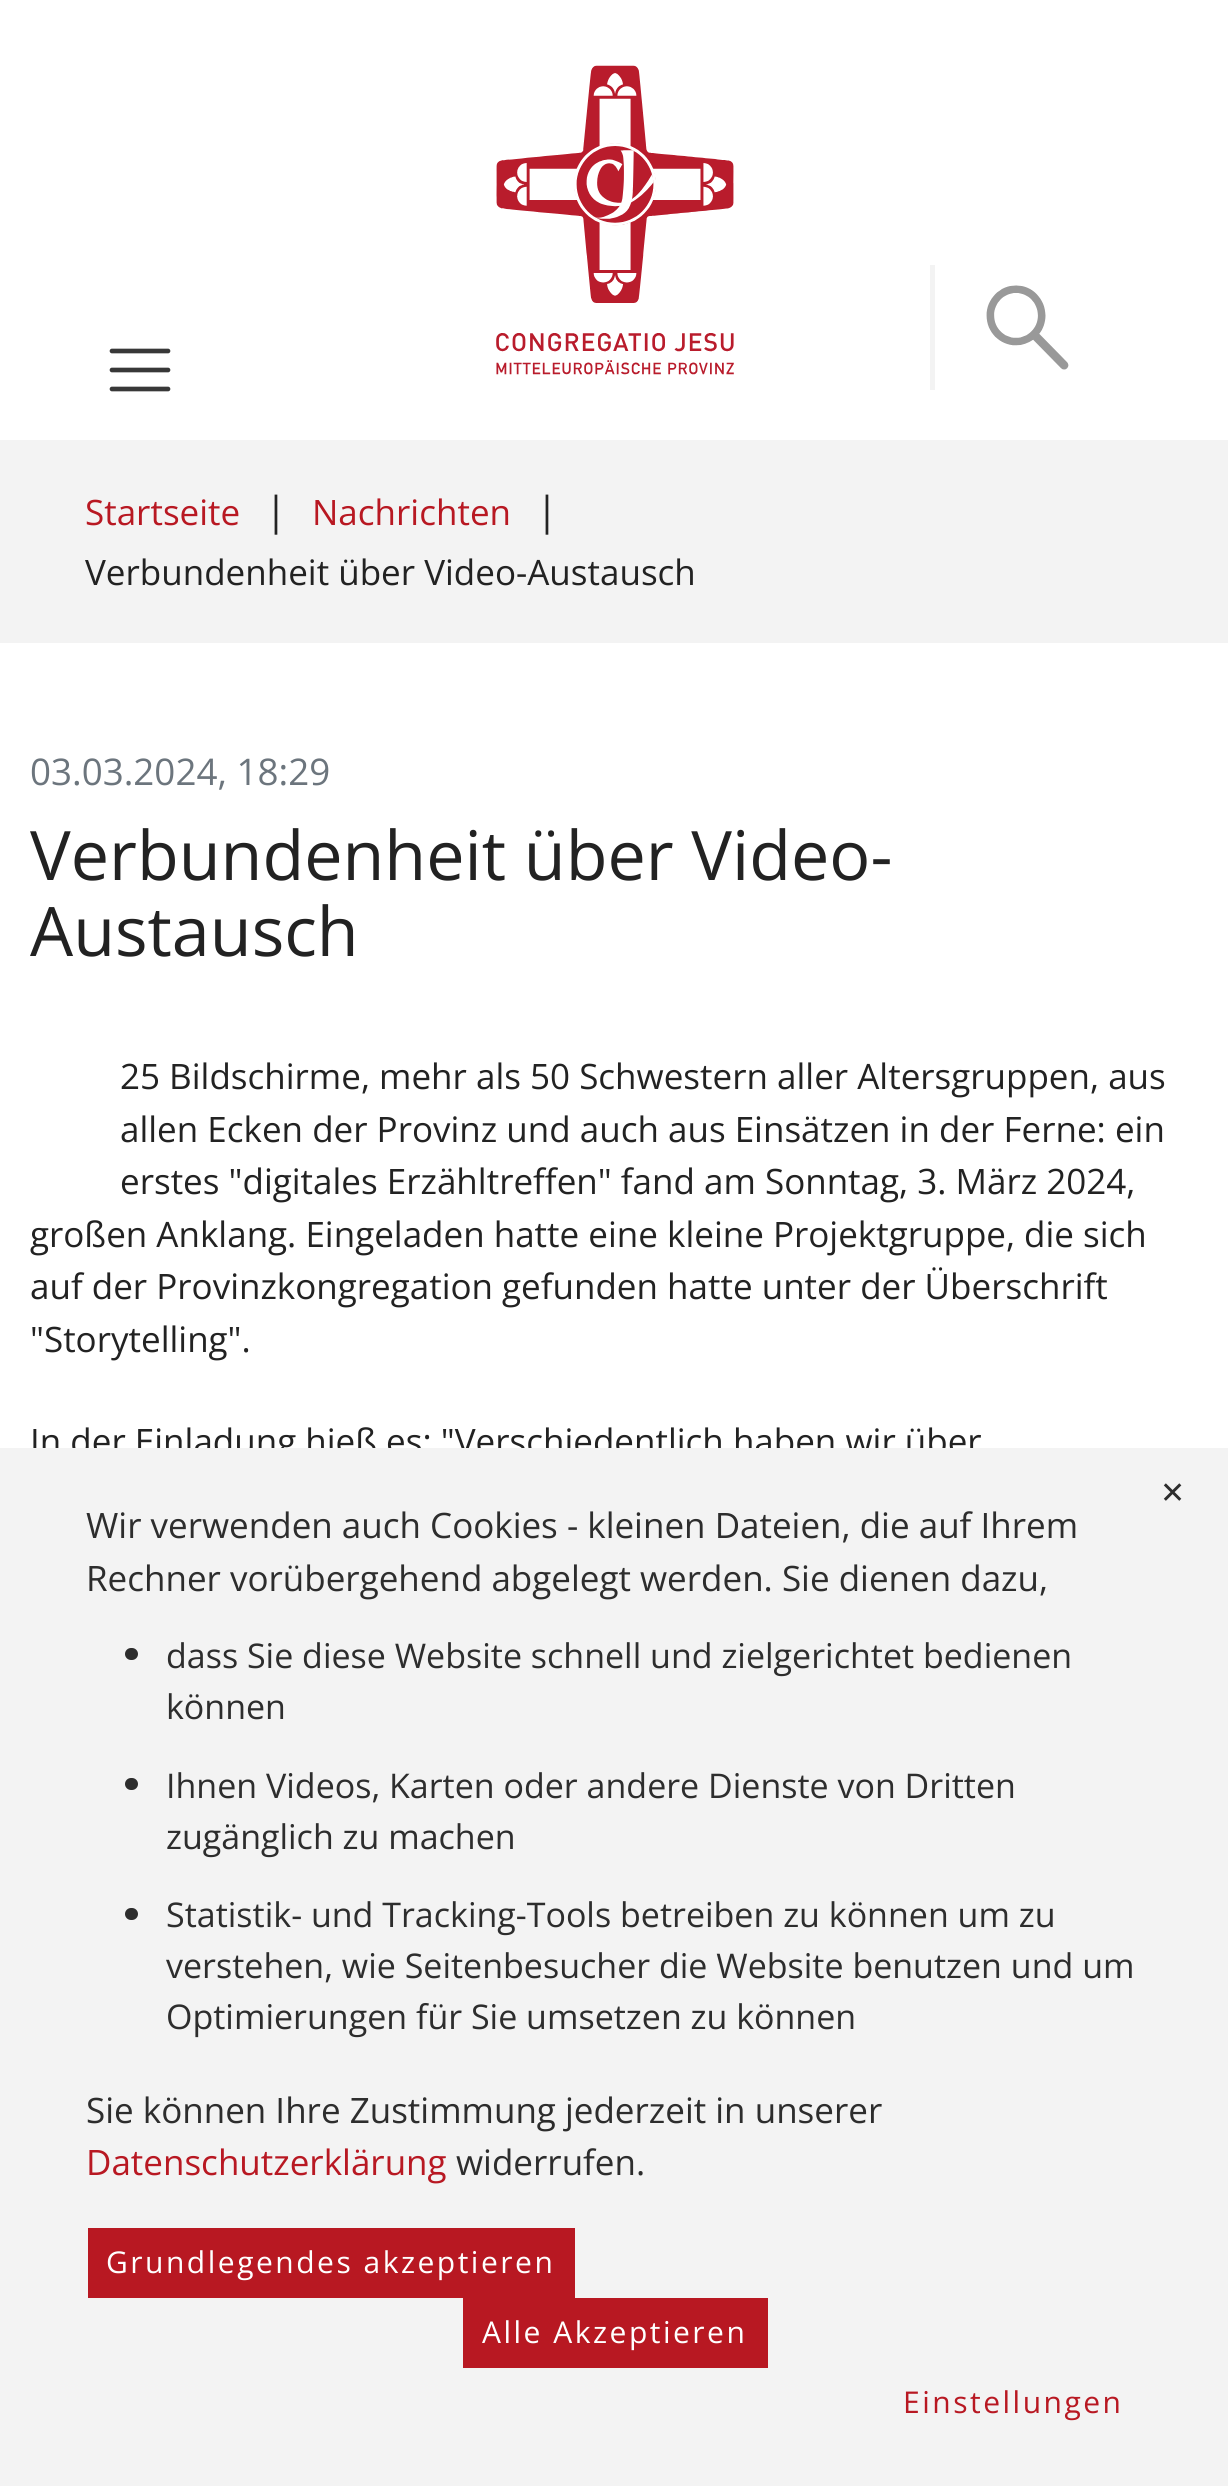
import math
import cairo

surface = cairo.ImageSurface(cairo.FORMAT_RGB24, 1228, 2486)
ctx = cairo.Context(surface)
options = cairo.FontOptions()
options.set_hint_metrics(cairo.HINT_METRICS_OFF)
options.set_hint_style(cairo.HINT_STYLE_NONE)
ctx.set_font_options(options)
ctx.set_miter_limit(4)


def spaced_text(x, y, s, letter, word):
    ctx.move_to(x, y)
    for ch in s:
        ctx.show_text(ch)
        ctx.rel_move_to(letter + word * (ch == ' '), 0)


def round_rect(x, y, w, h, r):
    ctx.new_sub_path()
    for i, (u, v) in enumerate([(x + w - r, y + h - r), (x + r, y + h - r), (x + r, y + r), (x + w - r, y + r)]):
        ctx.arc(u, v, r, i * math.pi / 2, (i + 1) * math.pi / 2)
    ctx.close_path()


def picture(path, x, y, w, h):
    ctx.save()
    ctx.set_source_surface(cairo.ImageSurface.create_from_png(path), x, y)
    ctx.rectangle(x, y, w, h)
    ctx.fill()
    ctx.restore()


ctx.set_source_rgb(1, 1, 1)
ctx.paint()
ctx.new_path()
ctx.move_to(112, 351)
ctx.line_to(168, 351)
ctx.move_to(112, 370)
ctx.line_to(168, 370)
ctx.move_to(112, 389)
ctx.line_to(168, 389)
ctx.set_source_rgb(0.22, 0.22, 0.22)
ctx.set_line_width(4.7)
ctx.set_line_cap(cairo.LINE_CAP_ROUND)
ctx.stroke()
picture("img1.png", 496, 65, 238, 310)
ctx.set_source_rgb(0.953, 0.953, 0.953)
ctx.rectangle(930, 265, 5, 125)
ctx.fill()
picture("img2.png", 986, 285, 83, 85)
ctx.rectangle(0, 440, 1228, 203)
ctx.fill()
ctx.select_font_face("Open Sans")
ctx.set_font_size(35)
ctx.set_source_rgb(0.722, 0.094, 0.133)
ctx.move_to(85, 525)
ctx.show_text("Startseite")
ctx.set_font_size(40)
ctx.set_source_rgb(0.133, 0.133, 0.133)
ctx.move_to(265, 525)
ctx.show_text("|")
ctx.set_font_size(35)
ctx.set_source_rgb(0.722, 0.094, 0.133)
ctx.move_to(312, 525)
ctx.show_text("Nachrichten")
ctx.set_font_size(40)
ctx.set_source_rgb(0.133, 0.133, 0.133)
ctx.move_to(536, 525)
ctx.show_text("|")
ctx.set_font_size(35)
ctx.move_to(85, 585)
ctx.show_text("Verbundenheit über Video-Austausch")
ctx.set_font_size(36.75)
ctx.set_source_rgb(0.424, 0.459, 0.49)
ctx.move_to(30, 785)
ctx.show_text("03.03.2024, 18:29")
ctx.set_font_size(68.25)
ctx.set_source_rgb(0.133, 0.133, 0.133)
ctx.move_to(30, 880)
ctx.show_text("Verbundenheit über Video-")
ctx.move_to(30, 956)
ctx.show_text("Austausch")
ctx.set_font_size(35)
ctx.move_to(120, 1089)
ctx.show_text("25 Bildschirme, mehr als 50 Schwestern aller Altersgruppen, aus")
ctx.move_to(120, 1142)
ctx.show_text("allen Ecken der Provinz und auch aus Einsätzen in der Ferne: ein")
ctx.move_to(120, 1194)
ctx.show_text("erstes \"digitales Erzähltreffen\" fand am Sonntag, 3. März 2024,")
ctx.move_to(30, 1247)
ctx.show_text("großen Anklang. Eingeladen hatte eine kleine Projektgruppe, die sich")
ctx.move_to(30, 1299)
ctx.show_text("auf der Provinzkongregation gefunden hatte unter der Überschrift")
ctx.move_to(30, 1352)
ctx.show_text("\"Storytelling\".")
ctx.move_to(30, 1454)
ctx.show_text("In der Einladung hieß es: \"Verschiedentlich haben wir über")
ctx.set_source_rgb(0.953, 0.953, 0.953)
ctx.rectangle(0, 1448, 1228, 1038)
ctx.fill()
ctx.select_font_face("DejaVu Sans")
ctx.set_font_size(30)
ctx.set_source_rgb(0.176, 0.176, 0.176)
ctx.move_to(1160, 1503)
ctx.show_text("✕")
ctx.select_font_face("Open Sans")
ctx.set_font_size(35)
ctx.move_to(86, 1538)
ctx.show_text("Wir verwenden auch Cookies - kleinen Dateien, die auf Ihrem")
ctx.move_to(86, 1591)
ctx.show_text("Rechner vorübergehend abgelegt werden. Sie dienen dazu,")
round_rect(125, 1648, 13, 12, 6)
ctx.fill()
ctx.set_font_size(34)
ctx.move_to(166, 1668)
ctx.show_text("dass Sie diese Website schnell und zielgerichtet bedienen")
ctx.move_to(166, 1719)
ctx.show_text("können")
round_rect(125, 1778, 13, 12, 6)
ctx.fill()
ctx.move_to(166, 1798)
ctx.show_text("Ihnen Videos, Karten oder andere Dienste von Dritten")
ctx.move_to(166, 1849)
ctx.show_text("zugänglich zu machen")
round_rect(125, 1908, 13, 12, 6)
ctx.fill()
ctx.move_to(166, 1927)
ctx.show_text("Statistik- und Tracking-Tools betreiben zu können um zu")
ctx.move_to(166, 1978)
ctx.show_text("verstehen, wie Seitenbesucher die Website benutzen und um")
ctx.move_to(166, 2029)
ctx.show_text("Optimierungen für Sie umsetzen zu können")
ctx.set_font_size(35)
ctx.move_to(86, 2123)
ctx.show_text("Sie können Ihre Zustimmung jederzeit in unserer")
ctx.set_source_rgb(0.722, 0.094, 0.133)
ctx.move_to(86, 2175)
ctx.show_text("Datenschutzerklärung")
ctx.set_source_rgb(0.176, 0.176, 0.176)
ctx.move_to(456, 2175)
ctx.show_text("widerrufen.")
ctx.set_source_rgb(0.722, 0.094, 0.133)
ctx.rectangle(88, 2228, 487, 70)
ctx.fill()
ctx.set_font_size(30)
ctx.set_source_rgb(1, 1, 1)
spaced_text(106, 2273, "Grundlegendes akzeptieren", 2.5, 0)
ctx.set_source_rgb(0.722, 0.094, 0.133)
ctx.rectangle(463, 2298, 305, 70)
ctx.fill()
ctx.set_source_rgb(1, 1, 1)
spaced_text(482, 2343, "Alle Akzeptieren", 2.5, 0)
ctx.set_source_rgb(0.722, 0.094, 0.133)
spaced_text(903, 2413, "Einstellungen", 2.5, 0)
surface.write_to_png("page.png")
